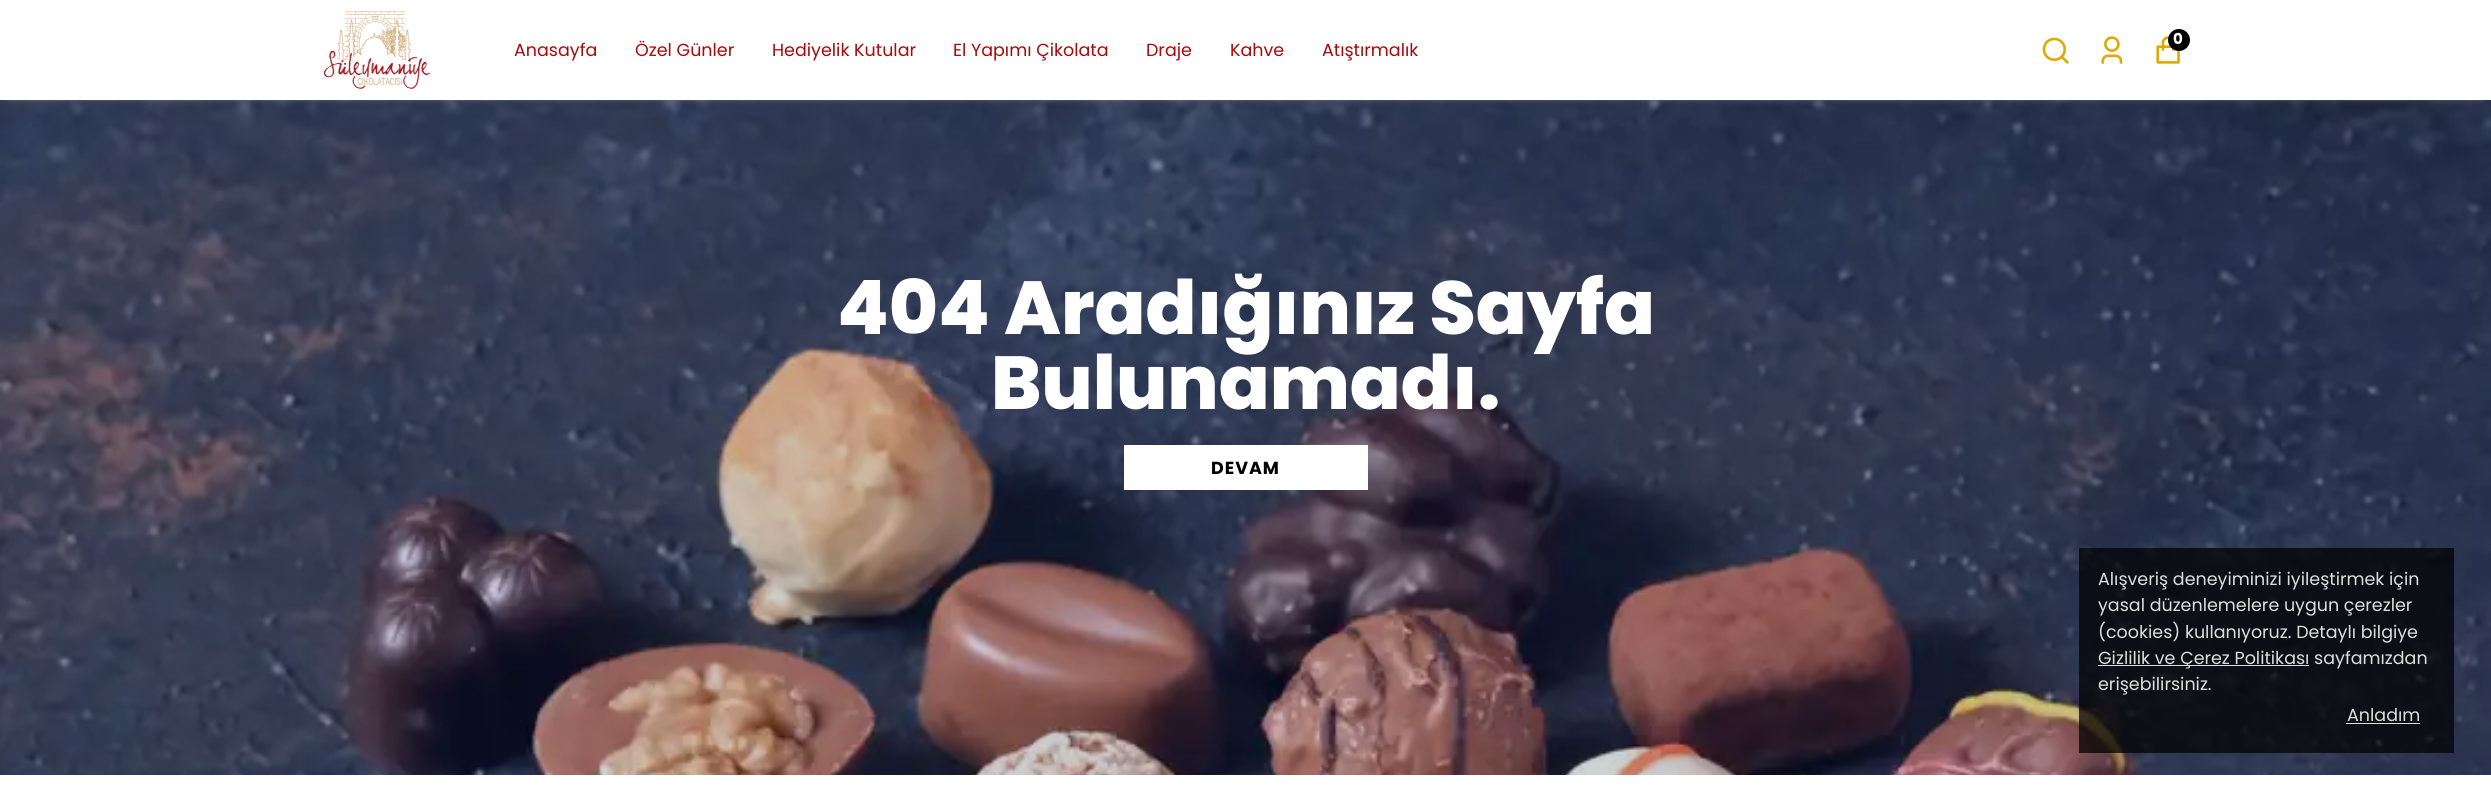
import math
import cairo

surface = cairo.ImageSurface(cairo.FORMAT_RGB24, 2491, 789)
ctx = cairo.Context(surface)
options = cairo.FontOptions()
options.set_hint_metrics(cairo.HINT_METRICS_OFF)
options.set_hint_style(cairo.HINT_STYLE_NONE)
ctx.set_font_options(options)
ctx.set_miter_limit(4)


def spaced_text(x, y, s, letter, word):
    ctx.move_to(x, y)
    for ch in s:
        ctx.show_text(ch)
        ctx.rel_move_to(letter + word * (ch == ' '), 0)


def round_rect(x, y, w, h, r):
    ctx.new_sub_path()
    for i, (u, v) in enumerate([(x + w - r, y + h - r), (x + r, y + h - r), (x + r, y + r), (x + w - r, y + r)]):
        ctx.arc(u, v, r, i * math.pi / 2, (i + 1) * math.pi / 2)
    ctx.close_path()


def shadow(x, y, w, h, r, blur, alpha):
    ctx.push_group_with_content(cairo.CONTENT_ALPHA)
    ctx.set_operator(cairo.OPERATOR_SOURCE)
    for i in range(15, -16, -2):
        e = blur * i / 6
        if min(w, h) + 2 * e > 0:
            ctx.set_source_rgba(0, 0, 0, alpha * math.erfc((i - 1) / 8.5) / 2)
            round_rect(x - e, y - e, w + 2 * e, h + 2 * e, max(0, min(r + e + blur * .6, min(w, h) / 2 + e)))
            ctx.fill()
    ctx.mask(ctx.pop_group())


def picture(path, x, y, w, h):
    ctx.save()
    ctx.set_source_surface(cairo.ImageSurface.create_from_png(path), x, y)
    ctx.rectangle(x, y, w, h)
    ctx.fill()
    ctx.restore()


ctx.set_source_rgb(1, 1, 1)
ctx.paint()
picture("img5.png", 0, 100, 2491, 675)
ctx.set_source_rgb(0.596, 0.596, 0.596)
shadow(9, 15, 2474, 83, 0, 3, 1)
ctx.set_source_rgb(1, 1, 1)
ctx.rectangle(3, 9, 2486, 91)
ctx.fill()
picture("img1.png", 323, 11, 107, 78)
picture("img2.png", 2042, 37, 27, 27)
picture("img3.png", 2101, 36, 22, 28)
picture("img4.png", 2156, 36, 24, 28)
ctx.set_source_rgb(0, 0, 0)
ctx.arc(2179, 40, 11, 0, 2 * math.pi)
ctx.fill()
ctx.select_font_face("Poppins", cairo.FONT_SLANT_NORMAL, cairo.FONT_WEIGHT_BOLD)
ctx.set_font_size(15)
ctx.set_source_rgb(1, 1, 1)
ctx.move_to(2173, 44)
ctx.show_text("0")
ctx.select_font_face("Poppins")
ctx.set_font_size(17.5)
ctx.set_source_rgb(0.659, 0.039, 0.039)
ctx.move_to(514, 56)
ctx.show_text("Anasayfa")
ctx.move_to(635, 56)
ctx.show_text("Özel Günler")
ctx.move_to(772, 56)
ctx.show_text("Hediyelik Kutular")
ctx.move_to(953, 56)
ctx.show_text("El Yapımı Çikolata")
ctx.move_to(1146, 56)
ctx.show_text("Draje")
ctx.move_to(1230, 56)
ctx.show_text("Kahve")
ctx.move_to(1322, 56)
ctx.show_text("Atıştırmalık")
ctx.set_source_rgba(0, 0, 0, 0.73)
ctx.rectangle(2079, 548, 375, 205)
ctx.fill()
ctx.set_source_rgb(0.867, 0.867, 0.871)
ctx.move_to(2098, 585)
ctx.show_text("Alışveriş deneyiminizi iyileştirmek için")
ctx.move_to(2098, 611)
ctx.show_text("yasal düzenlemelere uygun çerezler")
ctx.move_to(2098, 638)
ctx.show_text("(cookies) kullanıyoruz. Detaylı bilgiye")
ctx.set_source_rgba(1, 1, 1, 0.86)
ctx.rectangle(2098, 665, 211, 1)
ctx.fill()
ctx.set_source_rgb(0.867, 0.867, 0.871)
ctx.move_to(2098, 664)
ctx.show_text("Gizlilik ve Çerez Politikası sayfamızdan")
ctx.move_to(2098, 690)
ctx.show_text("erişebilirsiniz.")
ctx.move_to(2347, 721)
ctx.show_text("Anladım")
ctx.set_source_rgba(1, 1, 1, 0.86)
ctx.rectangle(2346, 723, 74, 1)
ctx.fill()
ctx.select_font_face("Poppins ExtraBold")
ctx.set_font_size(75)
ctx.set_source_rgb(1, 1, 1)
ctx.move_to(837, 334)
ctx.show_text("404 Aradığınız Sayfa")
ctx.move_to(991, 409)
ctx.show_text("Bulunamadı.")
ctx.rectangle(1124, 445, 244, 45)
ctx.fill()
ctx.select_font_face("Poppins", cairo.FONT_SLANT_NORMAL, cairo.FONT_WEIGHT_BOLD)
ctx.set_font_size(17.5)
ctx.set_source_rgb(0, 0, 0)
spaced_text(1211, 474, "DEVAM", 1, 0)
surface.write_to_png("page.png")
